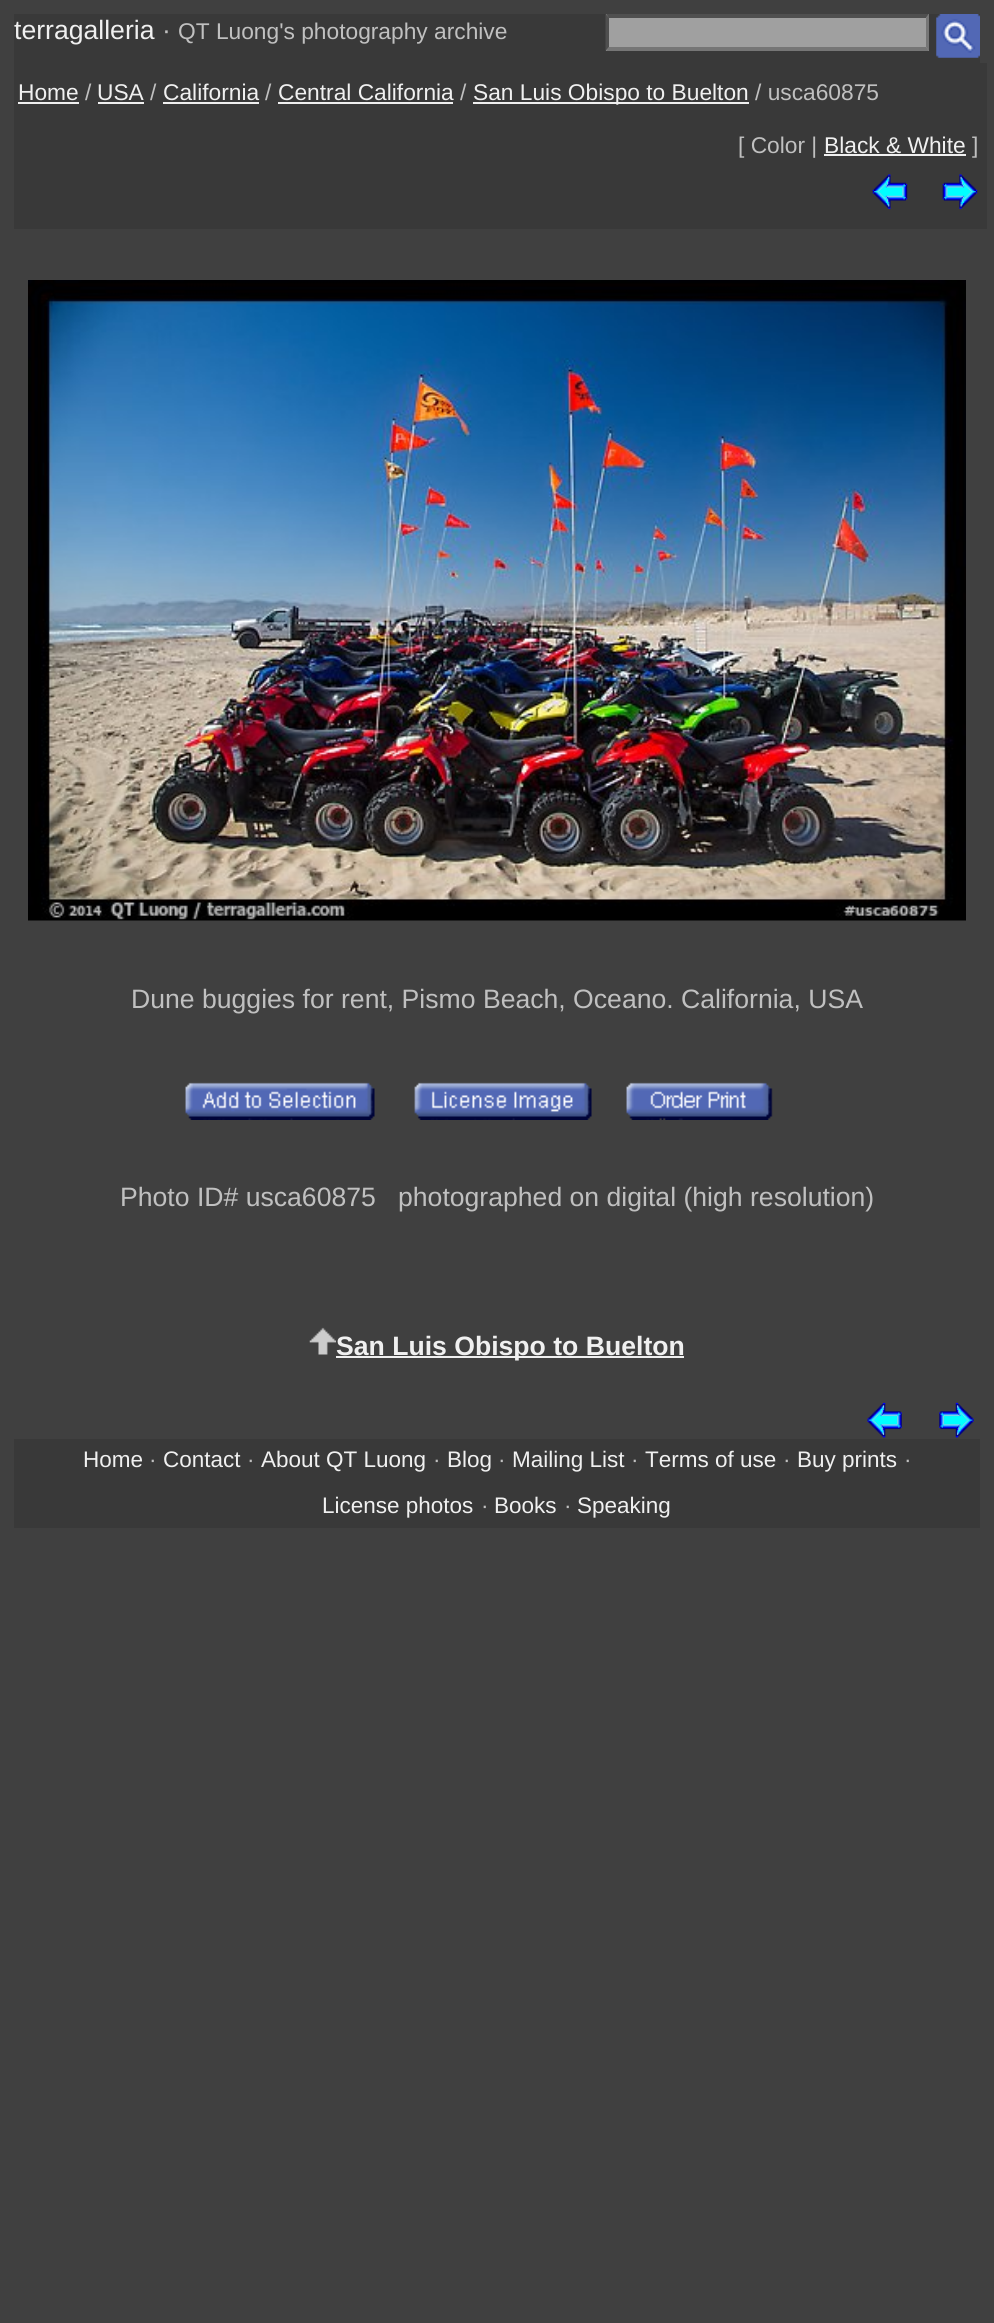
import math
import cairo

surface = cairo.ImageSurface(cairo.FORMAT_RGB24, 994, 2323)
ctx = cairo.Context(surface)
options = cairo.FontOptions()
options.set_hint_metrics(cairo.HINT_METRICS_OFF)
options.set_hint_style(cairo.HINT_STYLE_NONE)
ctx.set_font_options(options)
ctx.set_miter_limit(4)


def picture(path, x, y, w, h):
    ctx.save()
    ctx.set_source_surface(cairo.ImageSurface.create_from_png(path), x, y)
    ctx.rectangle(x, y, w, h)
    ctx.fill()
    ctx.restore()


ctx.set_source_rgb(0.251, 0.251, 0.251)
ctx.paint()
ctx.set_source_rgb(0.224, 0.224, 0.224)
ctx.rectangle(14, 14, 966, 49)
ctx.fill()
ctx.select_font_face("Liberation Sans")
ctx.set_font_size(26.6)
ctx.set_source_rgb(0.941, 0.941, 0.941)
ctx.move_to(14, 39)
ctx.show_text("terragalleria")
ctx.set_source_rgb(0.753, 0.753, 0.753)
ctx.move_to(162, 39)
ctx.show_text("·")
ctx.set_font_size(22.75)
ctx.move_to(178, 39)
ctx.show_text("QT Luong's photography archive")
ctx.set_source_rgb(0.627, 0.627, 0.627)
ctx.rectangle(606, 14, 323, 37)
ctx.fill()
ctx.set_source_rgb(0.31, 0.31, 0.31)
ctx.new_path()
ctx.move_to(606, 14)
ctx.line_to(929, 14)
ctx.line_to(926, 18)
ctx.line_to(609, 18)
ctx.close_path()
ctx.fill()
ctx.set_source_rgb(0.463, 0.463, 0.463)
ctx.new_path()
ctx.move_to(929, 14)
ctx.line_to(929, 51)
ctx.line_to(926, 47)
ctx.line_to(926, 17.5)
ctx.close_path()
ctx.fill()
ctx.new_path()
ctx.move_to(929, 51)
ctx.line_to(606, 51)
ctx.line_to(609, 47)
ctx.line_to(926, 47)
ctx.close_path()
ctx.fill()
ctx.set_source_rgb(0.31, 0.31, 0.31)
ctx.new_path()
ctx.move_to(605.5, 51)
ctx.line_to(605.5, 14)
ctx.line_to(609, 17.5)
ctx.line_to(609, 47)
ctx.close_path()
ctx.fill()
picture("img1.png", 936, 14, 44, 44)
ctx.set_source_rgb(0.224, 0.224, 0.224)
ctx.rectangle(14, 63, 973, 166)
ctx.fill()
ctx.set_source_rgb(0.941, 0.941, 0.941)
ctx.move_to(18, 100)
ctx.show_text("Home")
ctx.rectangle(18, 102, 61, 2)
ctx.fill()
ctx.set_source_rgb(0.753, 0.753, 0.753)
ctx.move_to(85, 100)
ctx.show_text("/")
ctx.set_source_rgb(0.941, 0.941, 0.941)
ctx.move_to(97, 100)
ctx.show_text("USA")
ctx.rectangle(98, 102, 46, 2)
ctx.fill()
ctx.set_source_rgb(0.753, 0.753, 0.753)
ctx.move_to(150, 100)
ctx.show_text("/")
ctx.set_source_rgb(0.941, 0.941, 0.941)
ctx.move_to(163, 100)
ctx.show_text("California")
ctx.rectangle(163, 102, 96, 2)
ctx.fill()
ctx.set_source_rgb(0.753, 0.753, 0.753)
ctx.move_to(265, 100)
ctx.show_text("/")
ctx.set_source_rgb(0.941, 0.941, 0.941)
ctx.move_to(278, 100)
ctx.show_text("Central California")
ctx.rectangle(278, 102, 175, 2)
ctx.fill()
ctx.set_source_rgb(0.753, 0.753, 0.753)
ctx.move_to(460, 100)
ctx.show_text("/")
ctx.set_source_rgb(0.941, 0.941, 0.941)
ctx.rectangle(473, 102, 276, 2)
ctx.fill()
ctx.move_to(473, 100)
ctx.show_text("San Luis Obispo to Buelton")
ctx.set_source_rgb(0.753, 0.753, 0.753)
ctx.move_to(755, 100)
ctx.show_text("/ usca60875")
ctx.move_to(738, 153)
ctx.show_text("[ Color |")
ctx.set_source_rgb(0.941, 0.941, 0.941)
ctx.move_to(824, 153)
ctx.show_text("Black & White")
ctx.rectangle(824, 154, 142, 2)
ctx.fill()
ctx.set_source_rgb(0.753, 0.753, 0.753)
ctx.move_to(972, 153)
ctx.show_text("]")
picture("img2.png", 872, 174, 36, 35)
picture("img3.png", 942, 174, 36, 35)
picture("img4.png", 28, 280, 938, 641)
ctx.set_font_size(26.6)
ctx.move_to(131, 1008)
ctx.show_text("Dune buggies for rent, Pismo Beach, Oceano. California, USA")
picture("img5.png", 185, 1082, 190, 38)
picture("img6.png", 414, 1082, 178, 38)
picture("img7.png", 626, 1082, 147, 38)
ctx.move_to(120, 1206)
ctx.show_text("Photo ID# usca60875")
ctx.move_to(398, 1206)
ctx.show_text("photographed on digital (high resolution)")
picture("img8.png", 309, 1327, 27, 28)
ctx.set_source_rgb(0.941, 0.941, 0.941)
ctx.rectangle(336, 1356, 348, 2)
ctx.fill()
ctx.select_font_face("Liberation Sans", cairo.FONT_SLANT_NORMAL, cairo.FONT_WEIGHT_BOLD)
ctx.move_to(336, 1355)
ctx.show_text("San Luis Obispo to Buelton")
picture("img9.png", 867, 1402, 35, 36)
picture("img10.png", 939, 1402, 35, 36)
ctx.set_source_rgb(0.224, 0.224, 0.224)
ctx.rectangle(14, 1439, 966, 89)
ctx.fill()
ctx.select_font_face("Liberation Sans")
ctx.set_font_size(22.5)
ctx.set_source_rgb(0.941, 0.941, 0.941)
ctx.move_to(83, 1467)
ctx.show_text("Home")
ctx.set_source_rgb(0.753, 0.753, 0.753)
ctx.move_to(149, 1467)
ctx.show_text("·")
ctx.set_source_rgb(0.941, 0.941, 0.941)
ctx.move_to(163, 1467)
ctx.show_text("Contact")
ctx.set_source_rgb(0.753, 0.753, 0.753)
ctx.move_to(247, 1467)
ctx.show_text("·")
ctx.set_source_rgb(0.941, 0.941, 0.941)
ctx.move_to(261, 1467)
ctx.show_text("About QT Luong")
ctx.set_source_rgb(0.753, 0.753, 0.753)
ctx.move_to(433, 1467)
ctx.show_text("·")
ctx.set_source_rgb(0.941, 0.941, 0.941)
ctx.move_to(447, 1467)
ctx.show_text("Blog")
ctx.set_source_rgb(0.753, 0.753, 0.753)
ctx.move_to(498, 1467)
ctx.show_text("·")
ctx.set_source_rgb(0.941, 0.941, 0.941)
ctx.move_to(512, 1467)
ctx.show_text("Mailing List")
ctx.set_source_rgb(0.753, 0.753, 0.753)
ctx.move_to(631, 1467)
ctx.show_text("·")
ctx.set_source_rgb(0.941, 0.941, 0.941)
ctx.move_to(645, 1467)
ctx.show_text("Terms of use")
ctx.set_source_rgb(0.753, 0.753, 0.753)
ctx.move_to(783, 1467)
ctx.show_text("·")
ctx.set_source_rgb(0.941, 0.941, 0.941)
ctx.move_to(797, 1467)
ctx.show_text("Buy prints")
ctx.set_source_rgb(0.753, 0.753, 0.753)
ctx.move_to(904, 1467)
ctx.show_text("·")
ctx.set_source_rgb(0.941, 0.941, 0.941)
ctx.move_to(322, 1513)
ctx.show_text("License photos")
ctx.set_source_rgb(0.753, 0.753, 0.753)
ctx.move_to(481, 1513)
ctx.show_text("·")
ctx.set_source_rgb(0.941, 0.941, 0.941)
ctx.move_to(494, 1513)
ctx.show_text("Books")
ctx.set_source_rgb(0.753, 0.753, 0.753)
ctx.move_to(564, 1513)
ctx.show_text("·")
ctx.set_source_rgb(0.941, 0.941, 0.941)
ctx.move_to(577, 1513)
ctx.show_text("Speaking")
surface.write_to_png("page.png")
